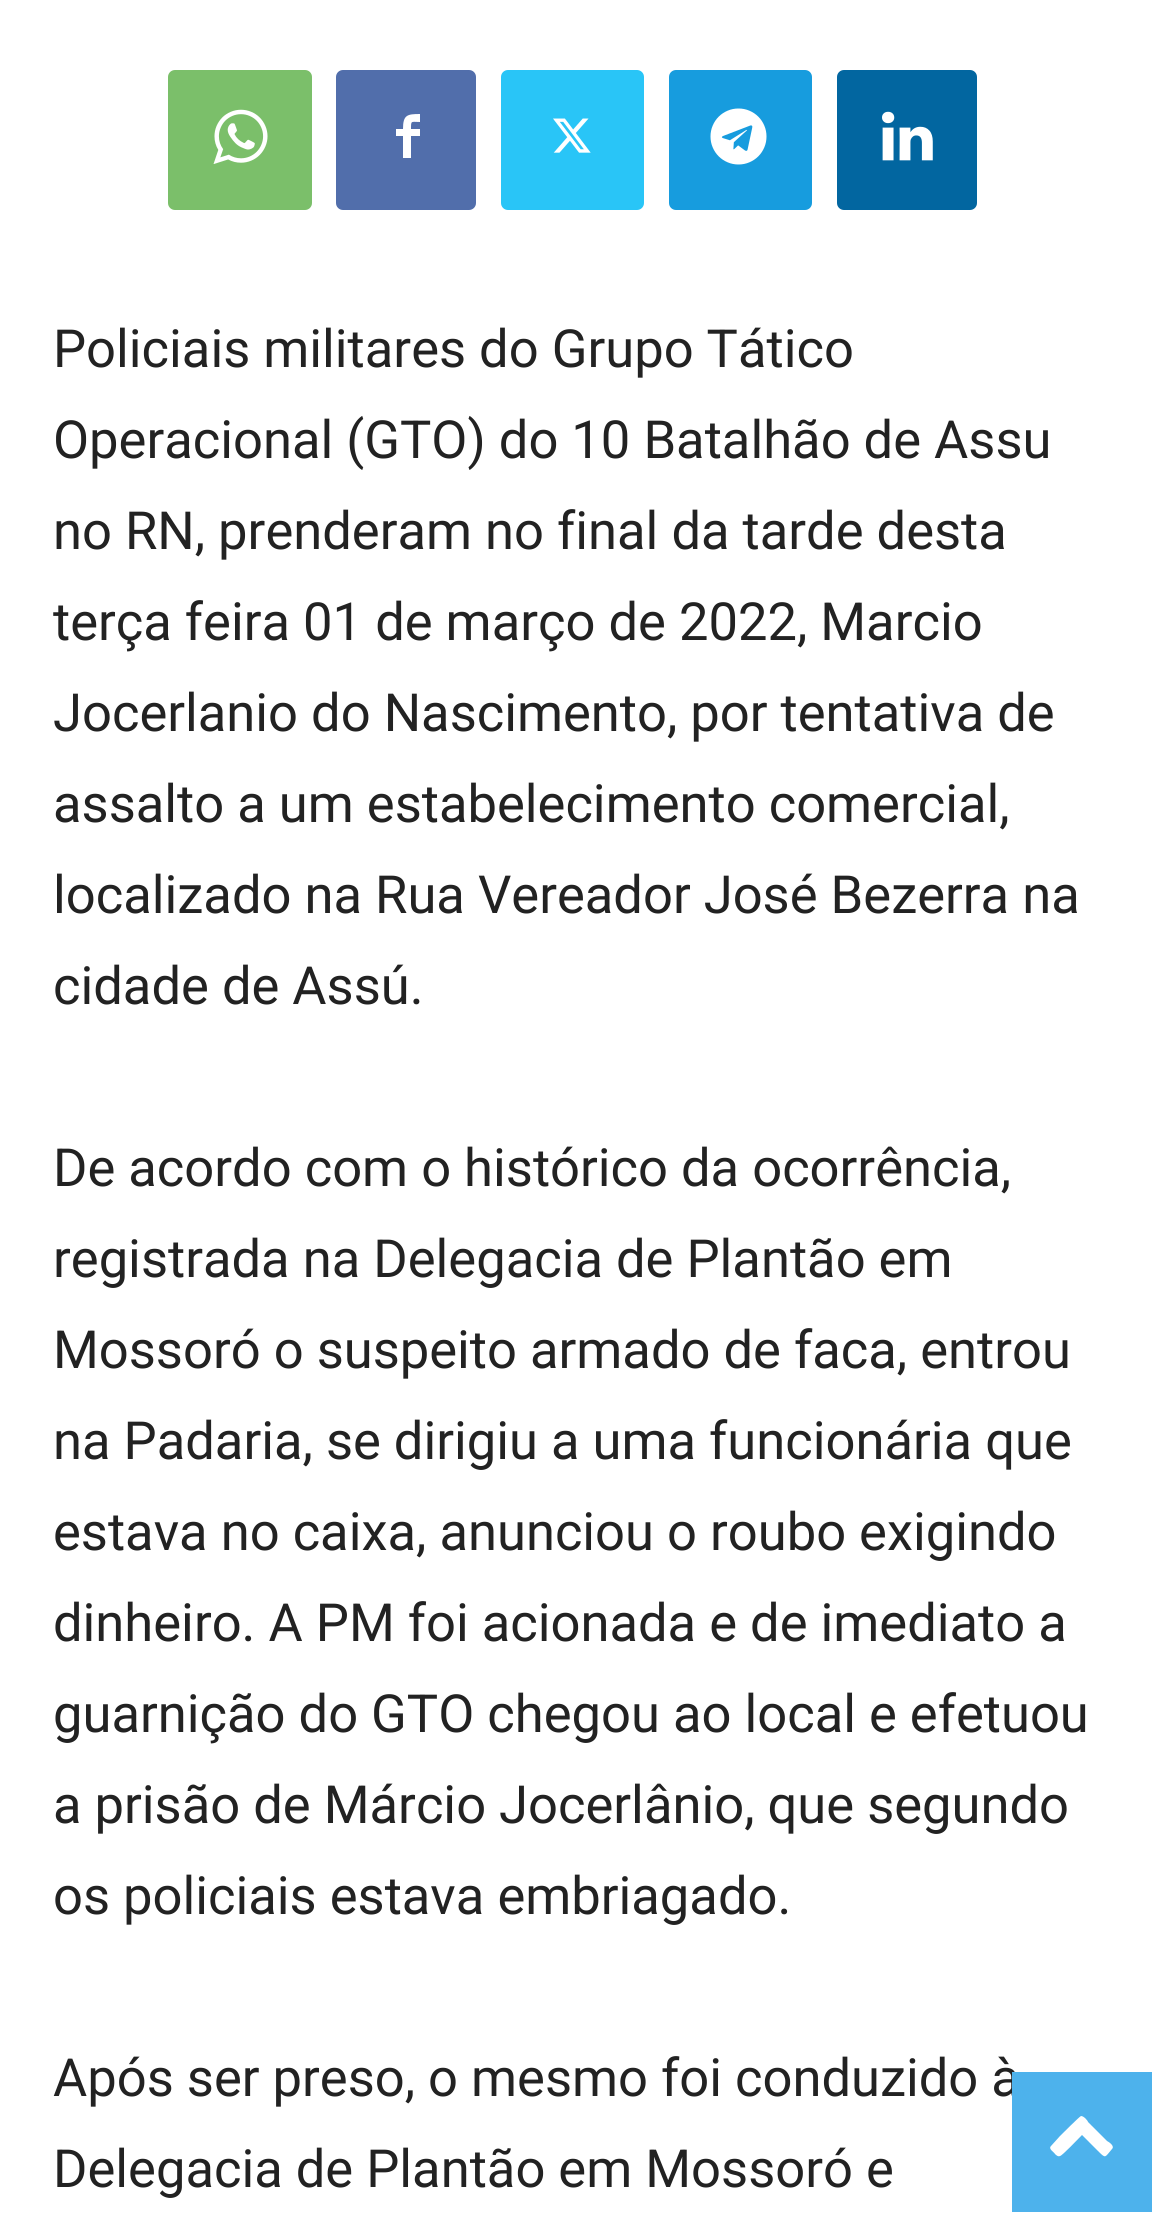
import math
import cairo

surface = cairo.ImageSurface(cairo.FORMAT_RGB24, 1167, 2224)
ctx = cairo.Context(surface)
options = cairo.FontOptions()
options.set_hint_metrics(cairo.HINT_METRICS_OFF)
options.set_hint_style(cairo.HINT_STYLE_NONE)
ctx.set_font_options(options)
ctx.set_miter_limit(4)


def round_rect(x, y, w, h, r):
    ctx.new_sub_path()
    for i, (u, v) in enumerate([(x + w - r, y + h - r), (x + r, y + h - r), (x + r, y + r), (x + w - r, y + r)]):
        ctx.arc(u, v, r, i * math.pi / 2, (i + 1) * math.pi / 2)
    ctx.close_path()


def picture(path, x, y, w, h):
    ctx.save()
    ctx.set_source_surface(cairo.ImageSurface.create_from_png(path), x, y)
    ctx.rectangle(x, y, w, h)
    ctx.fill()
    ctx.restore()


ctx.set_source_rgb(1, 1, 1)
ctx.paint()
ctx.set_source_rgb(0.482, 0.749, 0.416)
round_rect(168, 70, 144, 140, 7)
ctx.fill()
picture("img1.png", 213, 109, 55, 55)
ctx.set_source_rgb(0.318, 0.431, 0.671)
round_rect(336, 70, 140, 140, 7)
ctx.fill()
ctx.set_source_rgb(1, 1, 1)
ctx.new_path()
ctx.move_to(420, 122)
ctx.curve_to(411, 122, 411, 120, 411, 129)
ctx.line_to(420, 129)
ctx.line_to(420, 136)
ctx.line_to(411, 136)
ctx.line_to(411, 158)
ctx.line_to(403, 158)
ctx.line_to(403, 136)
ctx.line_to(396, 136)
ctx.line_to(396, 129)
ctx.line_to(403, 129)
ctx.curve_to(403, 115, 407, 114, 420, 114)
ctx.close_path()
ctx.fill()
ctx.set_source_rgb(0.161, 0.773, 0.965)
round_rect(501, 70, 143, 140, 7)
ctx.fill()
picture("img2.png", 553, 118, 38, 35)
ctx.set_source_rgb(0.09, 0.612, 0.871)
round_rect(669, 70, 143, 140, 7)
ctx.fill()
picture("img3.png", 710, 108, 57, 57)
ctx.set_source_rgb(0.008, 0.4, 0.627)
round_rect(837, 70, 140, 140, 7)
ctx.fill()
picture("img4.png", 882, 111, 51, 50)
ctx.select_font_face("Roboto")
ctx.set_font_size(52.5)
ctx.set_source_rgb(0.133, 0.133, 0.133)
ctx.move_to(53, 367)
ctx.show_text("Policiais militares do Grupo Tático")
ctx.move_to(53, 458)
ctx.show_text("Operacional (GTO) do 10 Batalhão de Assu")
ctx.move_to(53, 549)
ctx.show_text("no RN, prenderam no final da tarde desta")
ctx.move_to(53, 640)
ctx.show_text("terça feira 01 de março de 2022, Marcio")
ctx.move_to(53, 731)
ctx.show_text("Jocerlanio do Nascimento, por tentativa de")
ctx.move_to(53, 822)
ctx.show_text("assalto a um estabelecimento comercial,")
ctx.move_to(53, 913)
ctx.show_text("localizado na Rua Vereador José Bezerra na")
ctx.move_to(53, 1004)
ctx.show_text("cidade de Assú.")
ctx.move_to(53, 1186)
ctx.show_text("De acordo com o histórico da ocorrência,")
ctx.move_to(53, 1277)
ctx.show_text("registrada na Delegacia de Plantão em")
ctx.move_to(53, 1368)
ctx.show_text("Mossoró o suspeito armado de faca, entrou")
ctx.move_to(53, 1459)
ctx.show_text("na Padaria, se dirigiu a uma funcionária que")
ctx.move_to(53, 1550)
ctx.show_text("estava no caixa, anunciou o roubo exigindo")
ctx.move_to(53, 1641)
ctx.show_text("dinheiro. A PM foi acionada e de imediato a")
ctx.move_to(53, 1732)
ctx.show_text("guarnição do GTO chegou ao local e efetuou")
ctx.move_to(53, 1823)
ctx.show_text("a prisão de Márcio Jocerlânio, que segundo")
ctx.move_to(53, 1914)
ctx.show_text("os policiais estava embriagado.")
ctx.move_to(53, 2096)
ctx.show_text("Após ser preso, o mesmo foi conduzido à")
ctx.move_to(53, 2187)
ctx.show_text("Delegacia de Plantão em Mossoró e")
ctx.set_source_rgb(0.302, 0.698, 0.925)
ctx.rectangle(1012, 2072, 140, 140)
ctx.fill()
ctx.set_source_rgb(1, 1, 1)
ctx.new_path()
ctx.move_to(1112, 2149)
ctx.curve_to(1105, 2157, 1106, 2159, 1099, 2152)
ctx.line_to(1082, 2135)
ctx.curve_to(1079, 2138, 1062, 2156, 1060, 2156)
ctx.curve_to(1058, 2157, 1056, 2155, 1055, 2154)
ctx.curve_to(1054, 2152, 1048, 2149, 1051, 2146)
ctx.line_to(1060, 2136)
ctx.curve_to(1063, 2133, 1079, 2117, 1081, 2116)
ctx.curve_to(1084, 2116, 1088, 2121, 1088, 2122)
ctx.line_to(1107, 2141)
ctx.curve_to(1109, 2142, 1115, 2146, 1112, 2149)
ctx.close_path()
ctx.fill()
surface.write_to_png("page.png")
